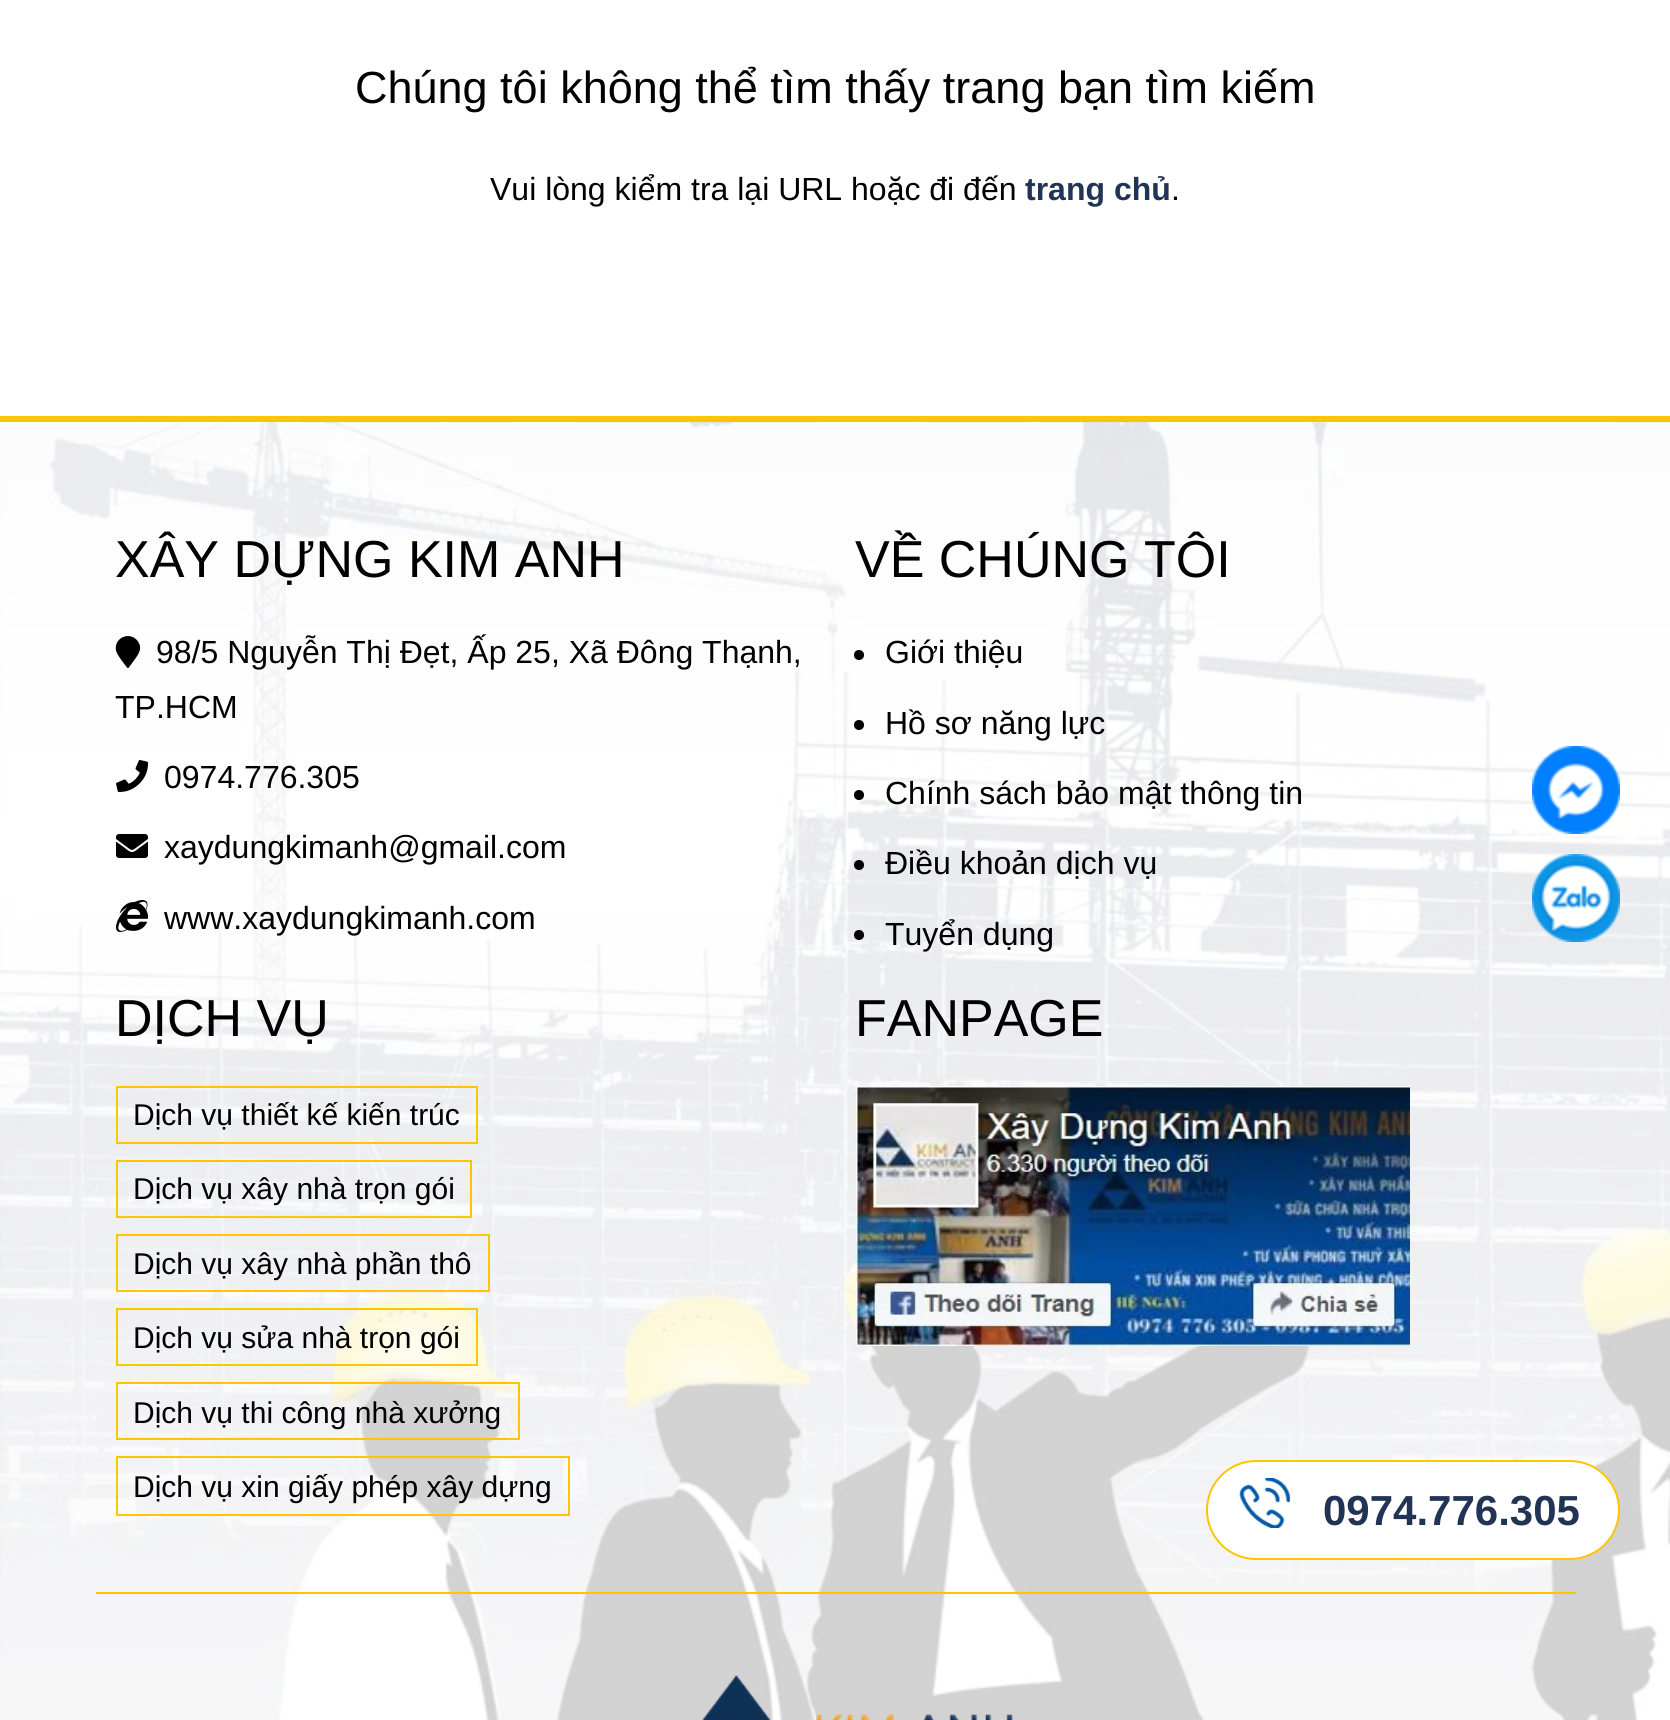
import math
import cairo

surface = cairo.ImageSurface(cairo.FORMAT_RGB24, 1670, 1720)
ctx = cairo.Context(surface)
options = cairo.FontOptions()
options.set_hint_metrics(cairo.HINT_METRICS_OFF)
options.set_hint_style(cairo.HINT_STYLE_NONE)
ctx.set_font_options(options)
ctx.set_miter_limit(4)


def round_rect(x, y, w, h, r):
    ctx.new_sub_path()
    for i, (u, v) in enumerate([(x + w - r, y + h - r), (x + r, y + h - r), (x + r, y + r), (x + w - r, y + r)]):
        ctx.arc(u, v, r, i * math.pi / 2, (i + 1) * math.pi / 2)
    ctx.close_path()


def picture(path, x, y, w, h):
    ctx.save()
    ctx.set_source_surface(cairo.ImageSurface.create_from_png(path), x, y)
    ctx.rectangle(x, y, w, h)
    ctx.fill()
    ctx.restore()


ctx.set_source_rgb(1, 1, 1)
ctx.paint()
ctx.select_font_face("Liberation Sans")
ctx.set_font_size(45)
ctx.set_source_rgb(0, 0, 0)
ctx.move_to(355, 103)
ctx.show_text("Chúng tôi không thể tìm thấy trang bạn tìm kiếm")
ctx.set_font_size(32)
ctx.move_to(490, 200)
ctx.show_text("Vui lòng kiểm tra lại URL hoặc đi đến")
ctx.select_font_face("Liberation Sans", cairo.FONT_SLANT_NORMAL, cairo.FONT_WEIGHT_BOLD)
ctx.set_source_rgb(0.133, 0.204, 0.333)
ctx.move_to(1025, 200)
ctx.show_text("trang chủ")
ctx.select_font_face("Liberation Sans")
ctx.set_source_rgb(0, 0, 0)
ctx.move_to(1171, 200)
ctx.show_text(".")
ctx.set_source_rgb(0.992, 0.773, 0.008)
ctx.rectangle(0, 416, 1670, 6)
ctx.fill()
picture("img1.png", 0, 422, 1670, 1298)
ctx.set_font_size(52)
ctx.set_source_rgb(0, 0, 0)
ctx.move_to(115, 577)
ctx.show_text("XÂY DỰNG KIM ANH")
ctx.new_path()
ctx.move_to(127, 667.5)
ctx.curve_to(124, 663.5, 117, 655, 116, 650.5)
ctx.curve_to(113.5, 637.5, 130.5, 630.5, 138, 641.5)
ctx.curve_to(143.5, 649.5, 137, 656, 132.5, 662.5)
ctx.line_to(128.5, 668)
ctx.curve_to(128, 668, 127, 668, 127, 667.5)
ctx.close_path()
ctx.fill()
ctx.set_font_size(32)
ctx.move_to(156, 663)
ctx.show_text("98/5 Nguyễn Thị Đẹt, Ấp 25, Xã Đông Thạnh,")
ctx.move_to(115, 718)
ctx.show_text("TP.HCM")
picture("img2.png", 116, 760, 33, 32)
ctx.move_to(164, 788)
ctx.show_text("0974.776.305")
picture("img3.png", 116, 834, 32, 24)
ctx.move_to(164, 858)
ctx.show_text("xaydungkimanh@gmail.com")
picture("img4.png", 116, 900, 32, 32)
ctx.move_to(164, 929)
ctx.show_text("www.xaydungkimanh.com")
ctx.set_font_size(52)
ctx.move_to(855, 577)
ctx.show_text("VỀ CHÚNG TÔI")
ctx.new_path()
ctx.arc(859, 655, 5, 0, 2 * math.pi)
ctx.fill()
ctx.set_font_size(32)
ctx.move_to(885, 663)
ctx.show_text("Giới thiệu")
ctx.new_path()
ctx.arc(859, 725, 5, 0, 2 * math.pi)
ctx.fill()
ctx.move_to(885, 734)
ctx.show_text("Hồ sơ năng lực")
ctx.new_path()
ctx.arc(859, 795, 5, 0, 2 * math.pi)
ctx.fill()
ctx.move_to(885, 804)
ctx.show_text("Chính sách bảo mật thông tin")
ctx.new_path()
ctx.arc(859, 865, 5, 0, 2 * math.pi)
ctx.fill()
ctx.move_to(885, 874)
ctx.show_text("Điều khoản dịch vụ")
ctx.new_path()
ctx.arc(859, 935, 5, 0, 2 * math.pi)
ctx.fill()
ctx.move_to(885, 945)
ctx.show_text("Tuyển dụng")
ctx.set_font_size(52)
ctx.move_to(115, 1036)
ctx.show_text("DỊCH VỤ")
ctx.rectangle(117, 1087, 360, 56)
ctx.set_source_rgb(0.992, 0.773, 0.008)
ctx.stroke()
ctx.set_font_size(30)
ctx.set_source_rgb(0, 0, 0)
ctx.move_to(133, 1125)
ctx.show_text("Dịch vụ thiết kế kiến trúc")
ctx.rectangle(117, 1161, 354, 56)
ctx.set_source_rgb(0.992, 0.773, 0.008)
ctx.stroke()
ctx.set_source_rgb(0, 0, 0)
ctx.move_to(133, 1199)
ctx.show_text("Dịch vụ xây nhà trọn gói")
ctx.rectangle(117, 1235, 372, 56)
ctx.set_source_rgb(0.992, 0.773, 0.008)
ctx.stroke()
ctx.set_source_rgb(0, 0, 0)
ctx.move_to(133, 1274)
ctx.show_text("Dịch vụ xây nhà phần thô")
ctx.rectangle(117, 1309, 360, 56)
ctx.set_source_rgb(0.992, 0.773, 0.008)
ctx.stroke()
ctx.set_source_rgb(0, 0, 0)
ctx.move_to(133, 1348)
ctx.show_text("Dịch vụ sửa nhà trọn gói")
ctx.rectangle(117, 1383, 402, 56)
ctx.set_source_rgb(0.992, 0.773, 0.008)
ctx.stroke()
ctx.set_source_rgb(0, 0, 0)
ctx.move_to(133, 1423)
ctx.show_text("Dịch vụ thi công nhà xưởng")
ctx.rectangle(117, 1457, 452, 58)
ctx.set_source_rgb(0.992, 0.773, 0.008)
ctx.stroke()
ctx.set_source_rgb(0, 0, 0)
ctx.move_to(133, 1497)
ctx.show_text("Dịch vụ xin giấy phép xây dựng")
ctx.set_font_size(52)
ctx.move_to(855, 1036)
ctx.show_text("FANPAGE")
picture("img5.png", 856, 1086, 554, 260)
ctx.set_source_rgb(0.992, 0.773, 0.008)
ctx.rectangle(96, 1592, 1480, 2)
ctx.fill()
picture("img6.png", 701, 1675, 312, 45)
picture("img7.png", 1532, 746, 88, 88)
picture("img8.png", 1532, 854, 88, 88)
ctx.set_source_rgb(1, 1, 1)
round_rect(1207, 1461, 412, 98, 49)
ctx.fill_preserve()
ctx.set_source_rgb(0.992, 0.773, 0.008)
ctx.stroke()
picture("img9.png", 1239, 1478, 51, 50)
ctx.select_font_face("Liberation Sans", cairo.FONT_SLANT_NORMAL, cairo.FONT_WEIGHT_BOLD)
ctx.set_font_size(42)
ctx.set_source_rgb(0.133, 0.204, 0.333)
ctx.move_to(1323, 1525)
ctx.show_text("0974.776.305")
surface.write_to_png("page.png")
